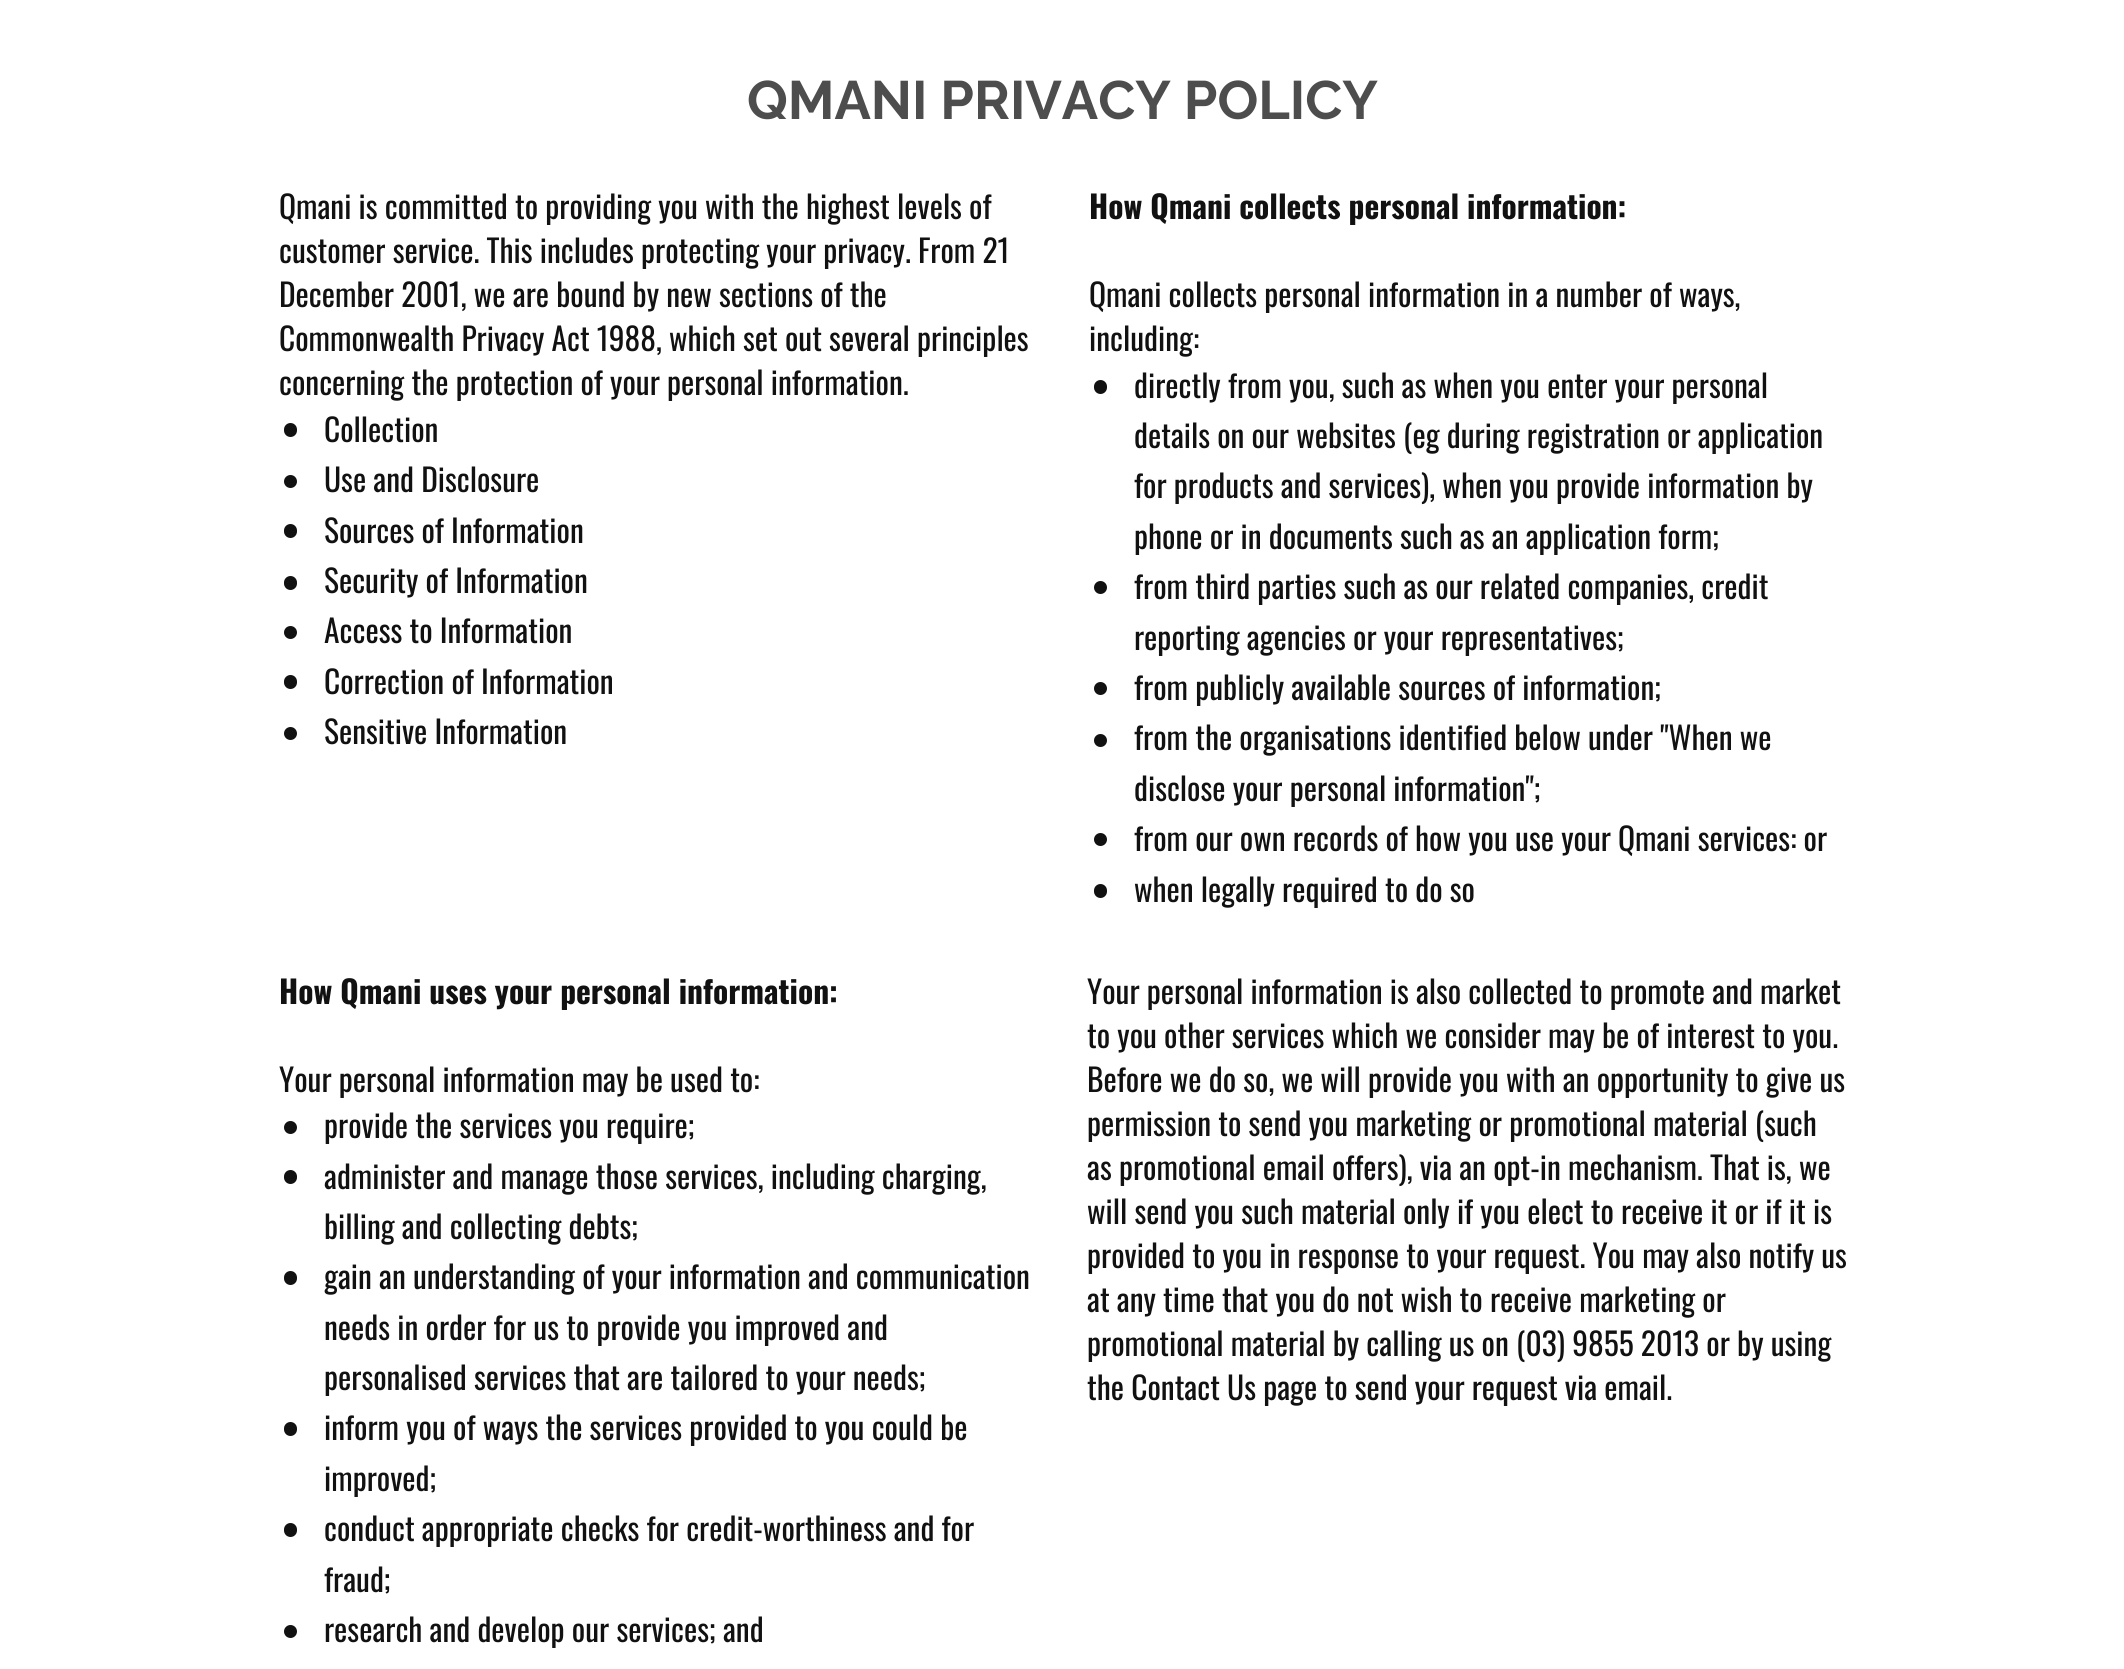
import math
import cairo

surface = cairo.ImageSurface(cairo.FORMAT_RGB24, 2124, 1669)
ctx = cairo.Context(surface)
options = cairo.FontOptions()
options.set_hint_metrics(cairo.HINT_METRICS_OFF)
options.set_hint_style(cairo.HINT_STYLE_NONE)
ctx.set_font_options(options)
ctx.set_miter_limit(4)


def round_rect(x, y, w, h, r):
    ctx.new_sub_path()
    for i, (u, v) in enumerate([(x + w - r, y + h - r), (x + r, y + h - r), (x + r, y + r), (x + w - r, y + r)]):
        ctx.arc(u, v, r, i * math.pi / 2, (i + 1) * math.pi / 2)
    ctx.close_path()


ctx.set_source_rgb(1, 1, 1)
ctx.paint()
ctx.select_font_face("Raleway", cairo.FONT_SLANT_NORMAL, cairo.FONT_WEIGHT_BOLD)
ctx.set_font_size(54)
ctx.set_source_rgb(0.302, 0.302, 0.302)
ctx.move_to(747, 119)
ctx.show_text("QMANI PRIVACY POLICY")
ctx.select_font_face("Oswald")
ctx.set_font_size(31.5)
ctx.set_source_rgb(0.067, 0.067, 0.067)
ctx.move_to(279, 219)
ctx.show_text("Qmani is committed to providing you with the highest levels of")
ctx.move_to(279, 263)
ctx.show_text("customer service. This includes protecting your privacy. From 21")
ctx.move_to(279, 307)
ctx.show_text("December 2001, we are bound by new sections of the")
ctx.move_to(279, 351)
ctx.show_text("Commonwealth Privacy Act 1988, which set out several principles")
ctx.move_to(279, 395)
ctx.show_text("concerning the protection of your personal information.")
round_rect(284, 423, 13, 14, 6.5)
ctx.fill()
ctx.move_to(324, 442)
ctx.show_text("Collection")
ctx.new_path()
ctx.arc(290.5, 481.5, 6.5, 0, 2 * math.pi)
ctx.fill()
ctx.move_to(324, 492)
ctx.show_text("Use and Disclosure")
round_rect(284, 524, 13, 14, 6.5)
ctx.fill()
ctx.move_to(324, 543)
ctx.show_text("Sources of Information")
round_rect(284, 576, 13, 14, 6.5)
ctx.fill()
ctx.move_to(324, 593)
ctx.show_text("Security of Information")
ctx.new_path()
ctx.arc(290.5, 632.5, 6.5, 0, 2 * math.pi)
ctx.fill()
ctx.move_to(324, 643)
ctx.show_text("Access to Information")
round_rect(284, 675, 13, 14, 6.5)
ctx.fill()
ctx.move_to(324, 694)
ctx.show_text("Correction of Information")
ctx.new_path()
ctx.arc(290.5, 733.5, 6.5, 0, 2 * math.pi)
ctx.fill()
ctx.move_to(324, 744)
ctx.show_text("Sensitive Information")
ctx.select_font_face("Oswald", cairo.FONT_SLANT_NORMAL, cairo.FONT_WEIGHT_BOLD)
ctx.move_to(1089, 219)
ctx.show_text("How Qmani collects personal information:")
ctx.select_font_face("Oswald")
ctx.move_to(1089, 307)
ctx.show_text("Qmani collects personal information in a number of ways,")
ctx.move_to(1089, 351)
ctx.show_text("including:")
round_rect(1094, 380, 13, 14, 6.5)
ctx.fill()
ctx.move_to(1134, 398)
ctx.show_text("directly from you, such as when you enter your personal")
ctx.move_to(1134, 448)
ctx.show_text("details on our websites (eg during registration or application")
ctx.move_to(1134, 498)
ctx.show_text("for products and services), when you provide information by")
ctx.move_to(1134, 549)
ctx.show_text("phone or in documents such as an application form;")
ctx.new_path()
ctx.arc(1100.5, 587.5, 6.5, 0, 2 * math.pi)
ctx.fill()
ctx.move_to(1134, 599)
ctx.show_text("from third parties such as our related companies, credit")
ctx.move_to(1134, 650)
ctx.show_text("reporting agencies or your representatives;")
ctx.new_path()
ctx.arc(1100.5, 688.5, 6.5, 0, 2 * math.pi)
ctx.fill()
ctx.move_to(1134, 700)
ctx.show_text("from publicly available sources of information;")
ctx.new_path()
ctx.arc(1100.5, 740.5, 6.5, 0, 2 * math.pi)
ctx.fill()
ctx.move_to(1134, 750)
ctx.show_text("from the organisations identified below under \"When we")
ctx.move_to(1134, 801)
ctx.show_text("disclose your personal information\";")
ctx.new_path()
ctx.arc(1100.5, 839.5, 6.5, 0, 2 * math.pi)
ctx.fill()
ctx.move_to(1134, 851)
ctx.show_text("from our own records of how you use your Qmani services: or")
round_rect(1094, 884, 13, 14, 6.5)
ctx.fill()
ctx.move_to(1134, 902)
ctx.show_text("when legally required to do so")
ctx.select_font_face("Oswald", cairo.FONT_SLANT_NORMAL, cairo.FONT_WEIGHT_BOLD)
ctx.move_to(279, 1004)
ctx.show_text("How Qmani uses your personal information:")
ctx.select_font_face("Oswald")
ctx.move_to(279, 1092)
ctx.show_text("Your personal information may be used to:")
ctx.new_path()
ctx.arc(290.5, 1127.5, 6.5, 0, 2 * math.pi)
ctx.fill()
ctx.move_to(324, 1138)
ctx.show_text("provide the services you require;")
round_rect(284, 1170, 13, 14, 6.5)
ctx.fill()
ctx.move_to(324, 1189)
ctx.show_text("administer and manage those services, including charging,")
ctx.move_to(324, 1239)
ctx.show_text("billing and collecting debts;")
round_rect(284, 1271, 13, 14, 6.5)
ctx.fill()
ctx.move_to(324, 1289)
ctx.show_text("gain an understanding of your information and communication")
ctx.move_to(324, 1340)
ctx.show_text("needs in order for us to provide you improved and")
ctx.move_to(324, 1390)
ctx.show_text("personalised services that are tailored to your needs;")
round_rect(284, 1422, 13, 14, 6.5)
ctx.fill()
ctx.move_to(324, 1440)
ctx.show_text("inform you of ways the services provided to you could be")
ctx.move_to(324, 1491)
ctx.show_text("improved;")
round_rect(284, 1523, 13, 14, 6.5)
ctx.fill()
ctx.move_to(324, 1541)
ctx.show_text("conduct appropriate checks for credit-worthiness and for")
ctx.move_to(324, 1592)
ctx.show_text("fraud;")
ctx.new_path()
ctx.arc(290.5, 1631.5, 6.5, 0, 2 * math.pi)
ctx.fill()
ctx.move_to(324, 1642)
ctx.show_text("research and develop our services; and")
ctx.move_to(1087, 1004)
ctx.show_text("Your personal information is also collected to promote and market")
ctx.move_to(1087, 1048)
ctx.show_text("to you other services which we consider may be of interest to you.")
ctx.move_to(1087, 1092)
ctx.show_text("Before we do so, we will provide you with an opportunity to give us")
ctx.move_to(1087, 1136)
ctx.show_text("permission to send you marketing or promotional material (such")
ctx.move_to(1087, 1180)
ctx.show_text("as promotional email offers), via an opt-in mechanism. That is, we")
ctx.move_to(1087, 1224)
ctx.show_text("will send you such material only if you elect to receive it or if it is")
ctx.move_to(1087, 1268)
ctx.show_text("provided to you in response to your request. You may also notify us")
ctx.move_to(1087, 1312)
ctx.show_text("at any time that you do not wish to receive marketing or")
ctx.move_to(1087, 1356)
ctx.show_text("promotional material by calling us on (03) 9855 2013 or by using")
ctx.move_to(1087, 1400)
ctx.show_text("the Contact Us page to send your request via email.")
surface.write_to_png("page.png")
